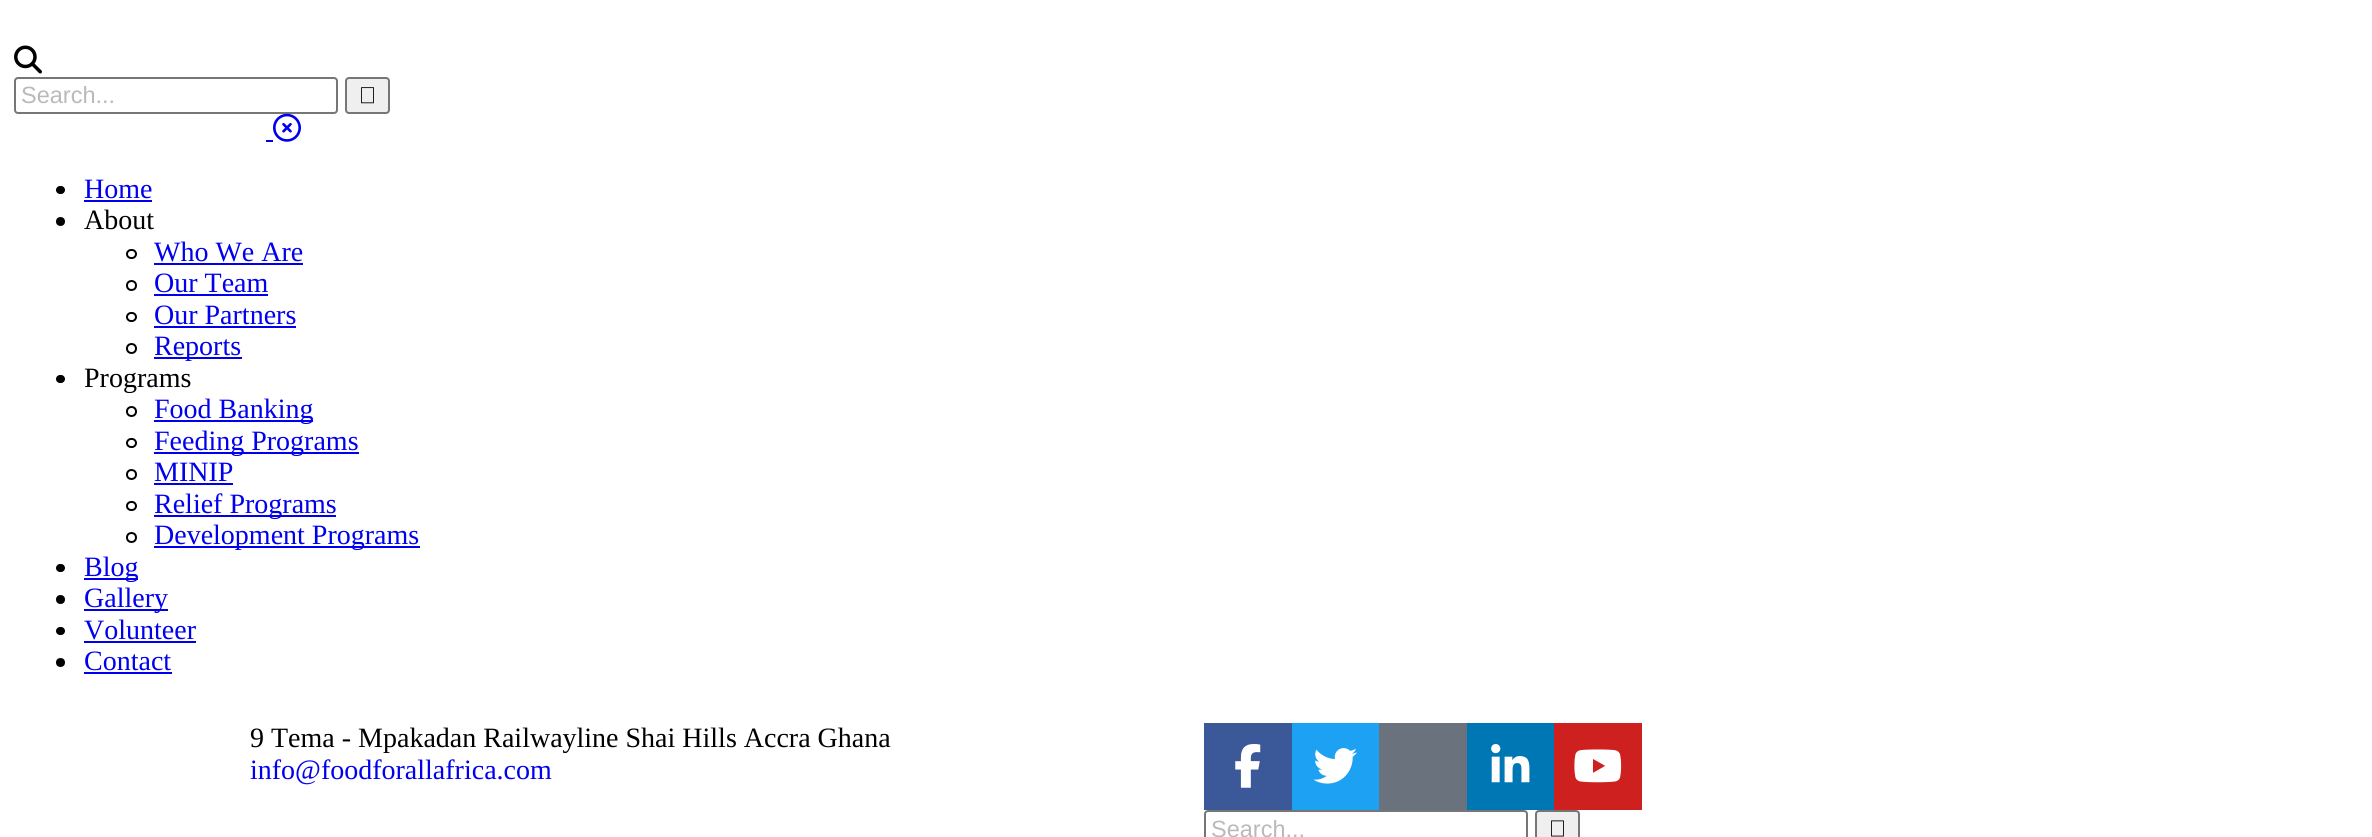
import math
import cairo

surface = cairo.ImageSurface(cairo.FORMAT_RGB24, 2372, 837)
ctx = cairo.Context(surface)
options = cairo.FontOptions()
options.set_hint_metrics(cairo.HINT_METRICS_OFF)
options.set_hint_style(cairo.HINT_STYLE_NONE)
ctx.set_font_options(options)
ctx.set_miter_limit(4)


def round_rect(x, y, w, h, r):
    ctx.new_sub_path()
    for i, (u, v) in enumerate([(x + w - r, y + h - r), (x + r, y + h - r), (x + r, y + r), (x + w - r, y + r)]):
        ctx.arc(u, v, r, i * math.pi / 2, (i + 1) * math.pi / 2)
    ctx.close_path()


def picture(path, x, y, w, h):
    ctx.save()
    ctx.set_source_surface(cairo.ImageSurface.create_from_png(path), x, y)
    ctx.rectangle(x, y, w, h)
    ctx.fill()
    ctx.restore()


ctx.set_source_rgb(1, 1, 1)
ctx.paint()
picture("img1.png", 14, 45, 28, 29)
round_rect(15, 78, 322, 35, 3)
ctx.set_source_rgb(0.463, 0.463, 0.463)
ctx.stroke()
ctx.select_font_face("Liberation Sans")
ctx.set_font_size(23.5)
ctx.set_source_rgb(0.729, 0.729, 0.729)
ctx.move_to(21, 103)
ctx.show_text("Search...")
ctx.set_source_rgb(0.937, 0.937, 0.937)
round_rect(346, 78, 43, 35, 3)
ctx.fill_preserve()
ctx.set_source_rgb(0.463, 0.463, 0.463)
ctx.stroke()
picture("img2.png", 361, 87, 13, 17)
ctx.set_source_rgb(0, 0, 0.933)
ctx.rectangle(266, 140, 7, 2)
ctx.fill()
picture("img3.png", 273, 113, 28, 29)
ctx.set_source_rgb(0, 0, 0)
round_rect(56, 186, 9, 8, 4)
ctx.fill()
ctx.select_font_face("Liberation Serif")
ctx.set_font_size(28)
ctx.set_source_rgb(0, 0, 0.933)
ctx.move_to(84, 198)
ctx.show_text("Home")
ctx.rectangle(84, 200, 68, 2)
ctx.fill()
ctx.set_source_rgb(0, 0, 0)
ctx.arc(60.5, 221.5, 4.5, 0, 2 * math.pi)
ctx.fill()
ctx.move_to(84, 229)
ctx.show_text("About")
round_rect(127, 250, 9, 8, 4)
ctx.stroke()
ctx.set_source_rgb(0, 0, 0.933)
ctx.move_to(154, 261)
ctx.show_text("Who We Are")
ctx.rectangle(154, 263, 149, 2)
ctx.fill()
ctx.arc(131.5, 285.5, 4.5, 0, 2 * math.pi)
ctx.set_source_rgb(0, 0, 0)
ctx.stroke()
ctx.set_source_rgb(0, 0, 0.933)
ctx.move_to(154, 292)
ctx.show_text("Our Team")
ctx.rectangle(154, 294, 114, 2)
ctx.fill()
round_rect(127, 313, 9, 8, 4)
ctx.set_source_rgb(0, 0, 0)
ctx.stroke()
ctx.set_source_rgb(0, 0, 0.933)
ctx.move_to(154, 324)
ctx.show_text("Our Partners")
ctx.rectangle(154, 326, 142, 2)
ctx.fill()
ctx.arc(131.5, 348.5, 4.5, 0, 2 * math.pi)
ctx.set_source_rgb(0, 0, 0)
ctx.stroke()
ctx.set_source_rgb(0, 0, 0.933)
ctx.rectangle(154, 357, 88, 2)
ctx.fill()
ctx.move_to(154, 355)
ctx.show_text("Reports")
ctx.set_source_rgb(0, 0, 0)
round_rect(56, 375, 9, 8, 4)
ctx.fill()
ctx.move_to(84, 387)
ctx.show_text("Programs")
ctx.new_path()
ctx.arc(131.5, 411.5, 4.5, 0, 2 * math.pi)
ctx.stroke()
ctx.set_source_rgb(0, 0, 0.933)
ctx.rectangle(154, 420, 159, 2)
ctx.fill()
ctx.move_to(154, 418)
ctx.show_text("Food Banking")
round_rect(127, 439, 9, 8, 4)
ctx.set_source_rgb(0, 0, 0)
ctx.stroke()
ctx.set_source_rgb(0, 0, 0.933)
ctx.rectangle(154, 452, 205, 2)
ctx.fill()
ctx.move_to(154, 450)
ctx.show_text("Feeding Programs")
ctx.new_path()
ctx.arc(131.5, 474.5, 4.5, 0, 2 * math.pi)
ctx.set_source_rgb(0, 0, 0)
ctx.stroke()
ctx.set_source_rgb(0, 0, 0.933)
ctx.move_to(154, 481)
ctx.show_text("MINIP")
ctx.rectangle(154, 483, 79, 2)
ctx.fill()
round_rect(127, 502, 9, 8, 4)
ctx.set_source_rgb(0, 0, 0)
ctx.stroke()
ctx.set_source_rgb(0, 0, 0.933)
ctx.rectangle(154, 515, 182, 2)
ctx.fill()
ctx.move_to(154, 513)
ctx.show_text("Relief Programs")
ctx.new_path()
ctx.arc(131.5, 537.5, 4.5, 0, 2 * math.pi)
ctx.set_source_rgb(0, 0, 0)
ctx.stroke()
ctx.set_source_rgb(0, 0, 0.933)
ctx.rectangle(154, 546, 266, 2)
ctx.fill()
ctx.move_to(154, 544)
ctx.show_text("Development Programs")
ctx.set_source_rgb(0, 0, 0)
round_rect(56, 564, 9, 8, 4)
ctx.fill()
ctx.set_source_rgb(0, 0, 0.933)
ctx.rectangle(84, 578, 54, 2)
ctx.fill()
ctx.move_to(84, 576)
ctx.show_text("Blog")
ctx.set_source_rgb(0, 0, 0)
ctx.new_path()
ctx.arc(60.5, 599.5, 4.5, 0, 2 * math.pi)
ctx.fill()
ctx.set_source_rgb(0, 0, 0.933)
ctx.rectangle(84, 609, 84, 2)
ctx.fill()
ctx.move_to(84, 607)
ctx.show_text("Gallery")
ctx.set_source_rgb(0, 0, 0)
round_rect(56, 627, 9, 8, 4)
ctx.fill()
ctx.set_source_rgb(0, 0, 0.933)
ctx.move_to(84, 639)
ctx.show_text("Volunteer")
ctx.rectangle(84, 641, 112, 2)
ctx.fill()
ctx.set_source_rgb(0, 0, 0)
ctx.arc(60.5, 662.5, 4.5, 0, 2 * math.pi)
ctx.fill()
ctx.set_source_rgb(0, 0, 0.933)
ctx.move_to(84, 670)
ctx.show_text("Contact")
ctx.rectangle(84, 672, 88, 2)
ctx.fill()
ctx.set_source_rgb(0, 0, 0)
ctx.move_to(250, 747)
ctx.show_text("9 Tema - Mpakadan Railwayline Shai Hills Accra Ghana")
ctx.set_source_rgb(0, 0, 0.933)
ctx.move_to(250, 779)
ctx.show_text("info@foodforallafrica.com")
ctx.set_source_rgb(0.231, 0.349, 0.596)
ctx.rectangle(1204, 723, 88, 87)
ctx.fill()
picture("img4.png", 1235, 744, 26, 44)
ctx.set_source_rgb(0.114, 0.631, 0.949)
ctx.rectangle(1292, 723, 87, 87)
ctx.fill()
picture("img5.png", 1313, 748, 44, 36)
ctx.set_source_rgb(0.412, 0.447, 0.49)
ctx.rectangle(1379, 723, 88, 87)
ctx.fill()
ctx.set_source_rgb(0, 0.467, 0.71)
ctx.rectangle(1467, 723, 87, 87)
ctx.fill()
picture("img6.png", 1491, 744, 39, 39)
ctx.set_source_rgb(0.804, 0.125, 0.122)
ctx.rectangle(1554, 723, 88, 87)
ctx.fill()
picture("img7.png", 1574, 749, 48, 34)
round_rect(1205, 811, 322, 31, 3)
ctx.set_source_rgb(0.463, 0.463, 0.463)
ctx.stroke()
ctx.select_font_face("Liberation Sans")
ctx.set_font_size(23.5)
ctx.set_source_rgb(0.729, 0.729, 0.729)
ctx.move_to(1211, 837)
ctx.show_text("Search...")
ctx.set_source_rgb(0.937, 0.937, 0.937)
round_rect(1536, 811, 43, 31, 3)
ctx.fill_preserve()
ctx.set_source_rgb(0.463, 0.463, 0.463)
ctx.stroke()
picture("img8.png", 1551, 820, 13, 17)
surface.write_to_png("page.png")
